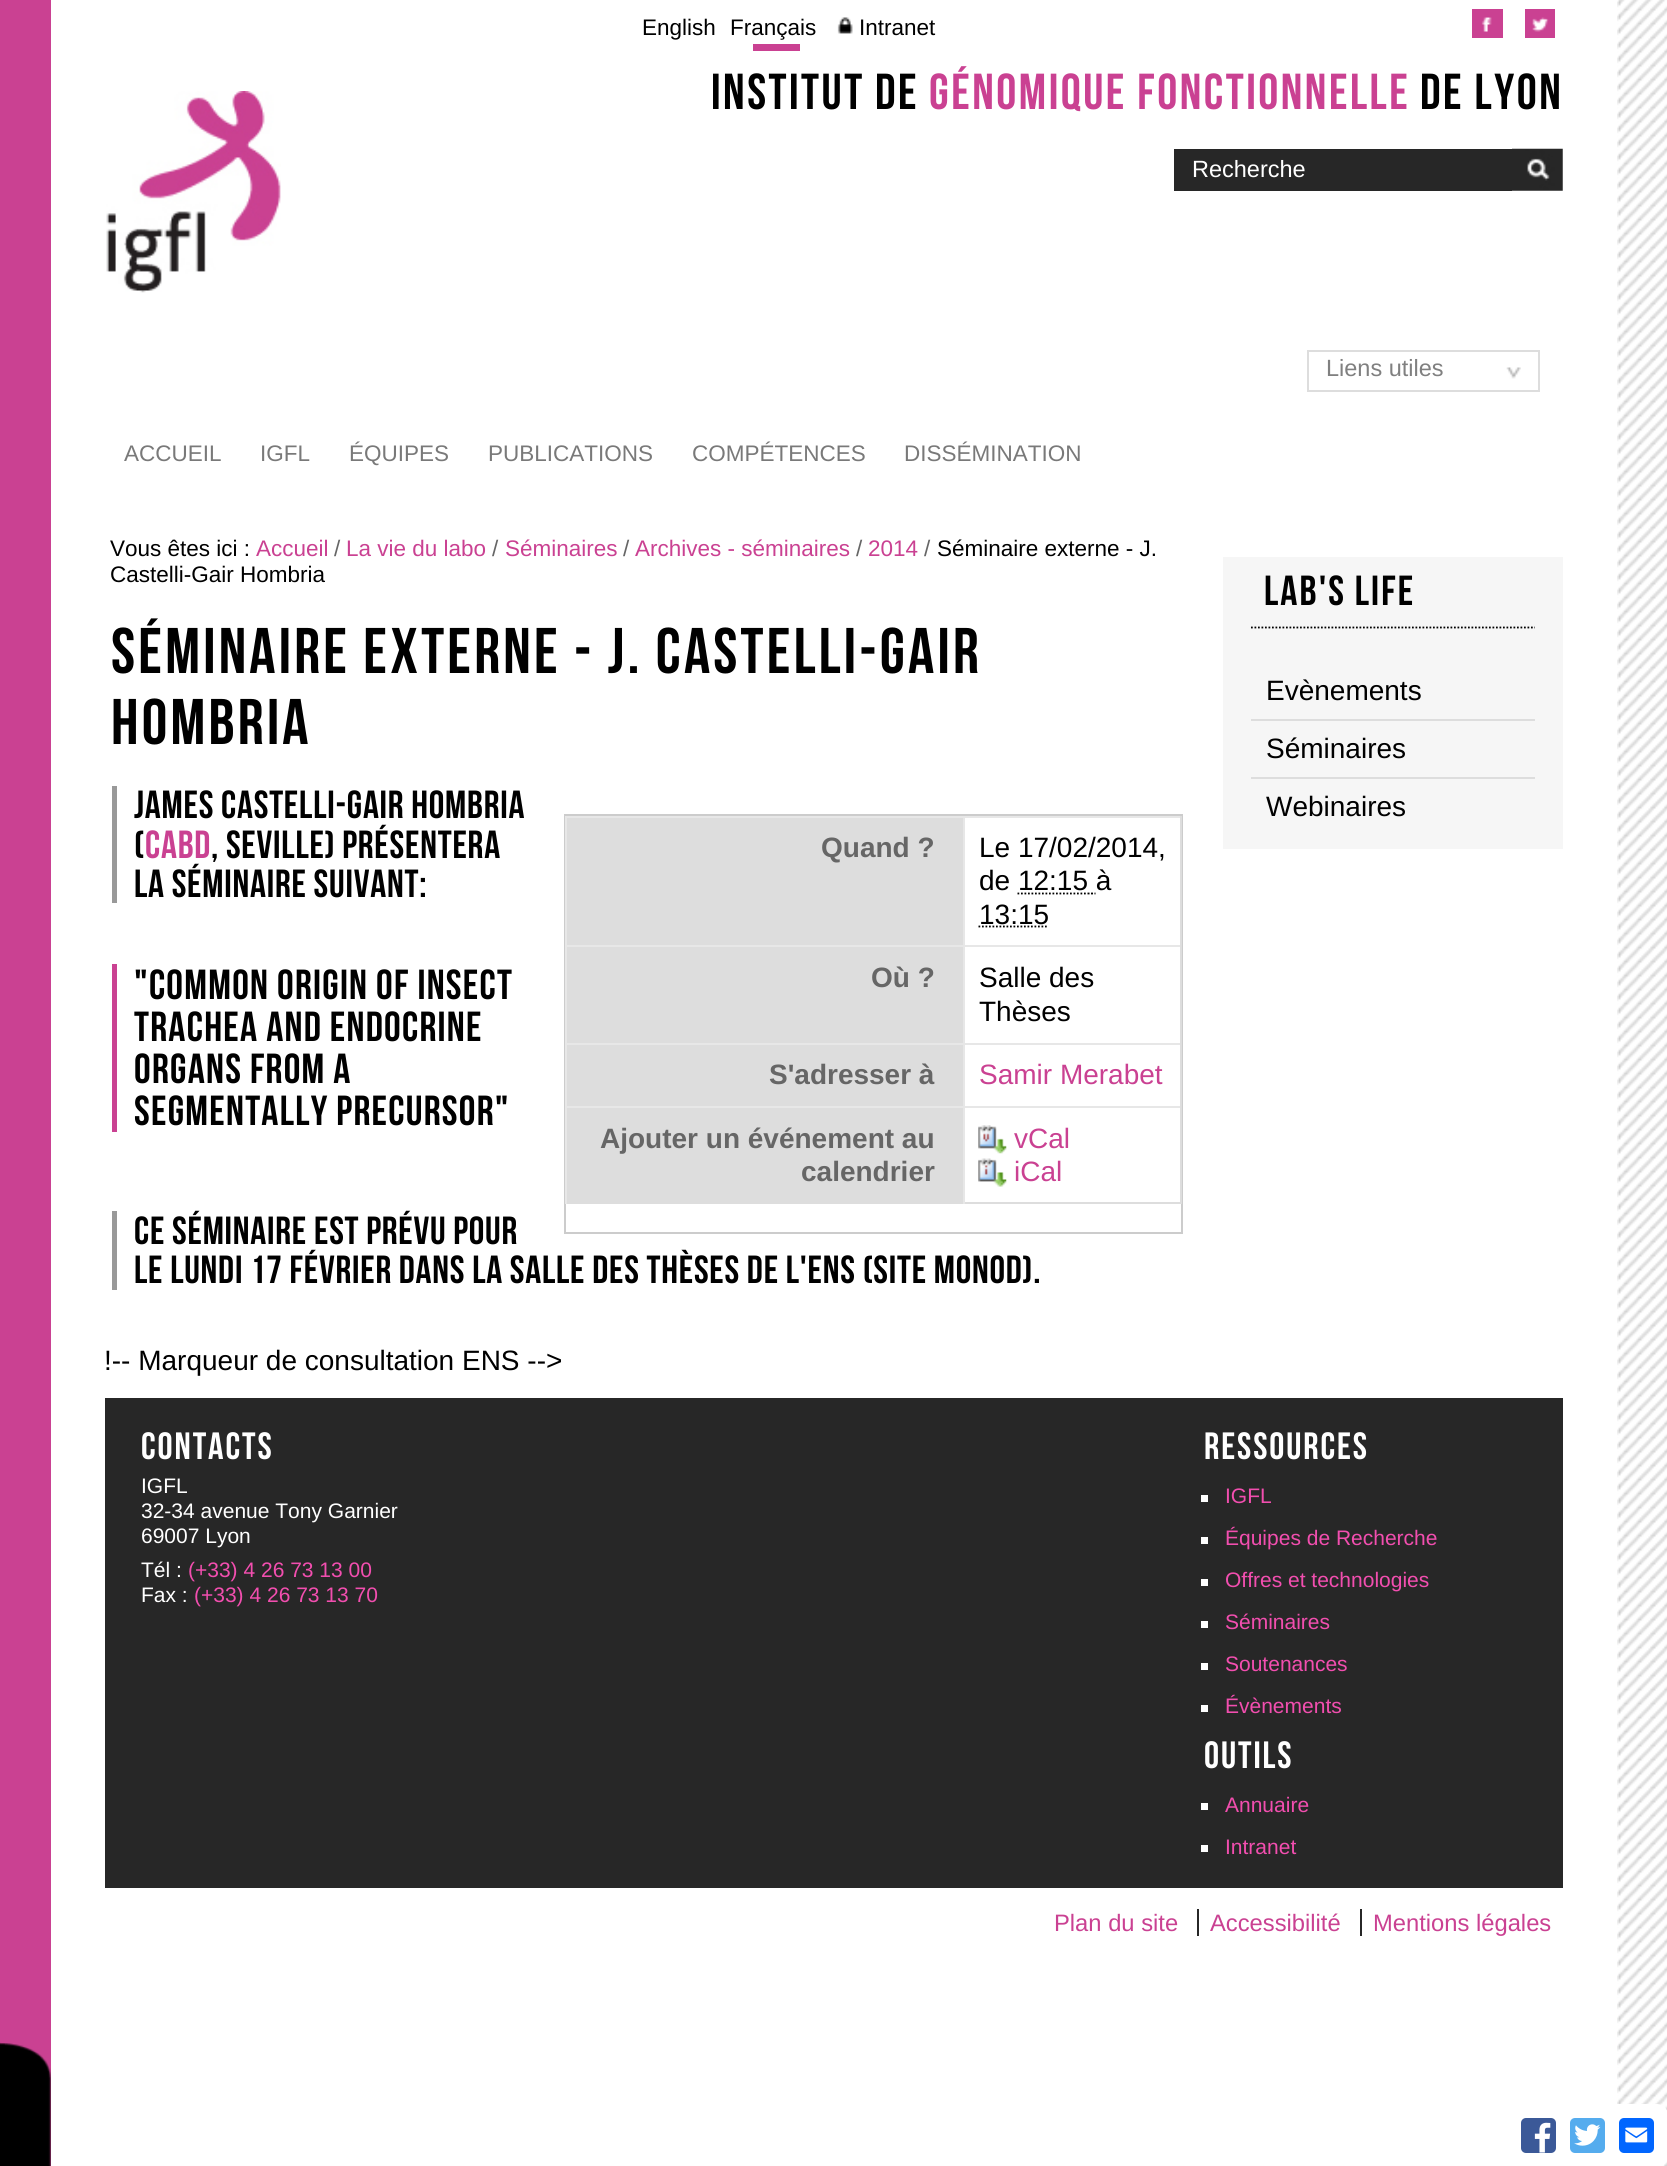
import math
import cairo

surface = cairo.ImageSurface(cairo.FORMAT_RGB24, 1667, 2166)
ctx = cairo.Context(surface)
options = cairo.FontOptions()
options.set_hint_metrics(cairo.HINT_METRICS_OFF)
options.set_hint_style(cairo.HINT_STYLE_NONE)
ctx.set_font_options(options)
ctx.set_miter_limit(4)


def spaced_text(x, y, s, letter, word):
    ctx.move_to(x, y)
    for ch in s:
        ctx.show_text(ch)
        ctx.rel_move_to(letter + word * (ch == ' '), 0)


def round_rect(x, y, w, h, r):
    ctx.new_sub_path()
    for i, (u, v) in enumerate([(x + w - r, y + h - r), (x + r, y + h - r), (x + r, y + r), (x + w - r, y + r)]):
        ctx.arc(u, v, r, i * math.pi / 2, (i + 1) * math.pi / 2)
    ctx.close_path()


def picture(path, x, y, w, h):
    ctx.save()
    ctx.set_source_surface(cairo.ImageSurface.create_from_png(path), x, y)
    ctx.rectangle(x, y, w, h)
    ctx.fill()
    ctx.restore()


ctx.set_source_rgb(1, 1, 1)
ctx.paint()
ctx.set_source_rgb(0.792, 0.255, 0.573)
ctx.rectangle(0, 0, 51, 2166)
ctx.fill()
picture("img1.png", 0, 2042, 51, 124)
ctx.select_font_face("Liberation Sans")
ctx.set_font_size(22.5)
ctx.set_source_rgb(0, 0, 0)
ctx.move_to(642, 35)
ctx.show_text("English")
ctx.move_to(730, 35)
ctx.show_text("Français")
ctx.set_source_rgb(0.792, 0.255, 0.573)
ctx.rectangle(753, 44, 47, 7)
ctx.fill()
picture("img2.png", 837, 17, 16, 17)
ctx.set_source_rgb(0, 0, 0)
ctx.move_to(859, 35)
ctx.show_text("Intranet")
ctx.set_source_rgb(0.792, 0.255, 0.573)
ctx.rectangle(1472, 9, 31, 29)
ctx.fill()
ctx.rectangle(1525, 9, 30, 29)
ctx.fill()
picture("img3.png", 1481, 17, 11, 15)
picture("img4.png", 1532, 17, 17, 15)
picture("img5.png", 106, 91, 175, 202)
ctx.select_font_face("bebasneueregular")
ctx.set_font_size(50.5)
ctx.set_source_rgb(0, 0, 0)
spaced_text(711, 109, "Institut de", 2.5, 0)
ctx.set_source_rgb(0.792, 0.255, 0.573)
spaced_text(929, 109, "génomique fonctionnelle", 2.5, 0)
ctx.set_source_rgb(0, 0, 0)
spaced_text(1420, 109, "de Lyon", 2.5, 0)
ctx.set_source_rgb(0.153, 0.153, 0.153)
ctx.rectangle(1174, 149, 338, 42)
ctx.fill()
ctx.select_font_face("Liberation Sans")
ctx.set_font_size(23.5)
ctx.set_source_rgb(1, 1, 1)
ctx.move_to(1192, 177)
ctx.show_text("Recherche")
picture("img6.png", 1512, 148, 51, 43)
picture("img7.png", 1506, 367, 15, 12)
ctx.rectangle(1308, 351, 231, 40)
ctx.set_source_rgb(0.867, 0.867, 0.867)
ctx.stroke()
ctx.set_source_rgb(0.502, 0.502, 0.502)
ctx.move_to(1326, 376)
ctx.show_text("Liens utiles")
ctx.set_font_size(22.5)
ctx.set_source_rgb(0.475, 0.475, 0.475)
ctx.move_to(124, 461)
ctx.show_text("ACCUEIL")
ctx.move_to(260, 461)
ctx.show_text("IGFL")
ctx.move_to(349, 461)
ctx.show_text("ÉQUIPES")
ctx.move_to(488, 461)
ctx.show_text("PUBLICATIONS")
ctx.move_to(692, 461)
ctx.show_text("COMPÉTENCES")
ctx.move_to(904, 461)
ctx.show_text("DISSÉMINATION")
ctx.set_source_rgb(0, 0, 0)
ctx.move_to(110, 556)
ctx.show_text("Vous êtes ici :")
ctx.set_source_rgb(0.792, 0.255, 0.573)
ctx.move_to(256, 556)
ctx.show_text("Accueil")
ctx.set_source_rgb(0.4, 0.4, 0.4)
ctx.move_to(334, 556)
ctx.show_text("/")
ctx.set_source_rgb(0.792, 0.255, 0.573)
ctx.move_to(346, 556)
ctx.show_text("La vie du labo")
ctx.set_source_rgb(0.4, 0.4, 0.4)
ctx.move_to(492, 556)
ctx.show_text("/")
ctx.set_source_rgb(0.792, 0.255, 0.573)
ctx.move_to(505, 556)
ctx.show_text("Séminaires")
ctx.set_source_rgb(0.4, 0.4, 0.4)
ctx.move_to(623, 556)
ctx.show_text("/")
ctx.set_source_rgb(0.792, 0.255, 0.573)
ctx.move_to(635, 556)
ctx.show_text("Archives - séminaires")
ctx.set_source_rgb(0.4, 0.4, 0.4)
ctx.move_to(856, 556)
ctx.show_text("/")
ctx.set_source_rgb(0.792, 0.255, 0.573)
ctx.move_to(868, 556)
ctx.show_text("2014")
ctx.set_source_rgb(0.4, 0.4, 0.4)
ctx.move_to(924, 556)
ctx.show_text("/")
ctx.set_source_rgb(0, 0, 0)
ctx.move_to(937, 556)
ctx.show_text("Séminaire externe - J.")
ctx.move_to(110, 582)
ctx.show_text("Castelli-Gair Hombria")
ctx.select_font_face("bebasneueregular")
ctx.set_font_size(64.4)
spaced_text(111, 673, "Séminaire externe - J. Castelli-Gair", 3.2, 0)
spaced_text(111, 744, "Hombria", 3.2, 0)
ctx.set_source_rgb(0.6, 0.6, 0.6)
ctx.rectangle(112, 786, 5, 117)
ctx.fill()
ctx.set_font_size(39.2)
ctx.set_source_rgb(0, 0, 0)
spaced_text(134, 818, "James CASTELLI-GAIR HOMBRIA", 0.78, 0)
spaced_text(134, 858, "(", 0.78, 0)
ctx.set_source_rgb(0.792, 0.255, 0.573)
spaced_text(145, 858, "CABD", 0.78, 0)
ctx.set_source_rgb(0, 0, 0)
spaced_text(211, 858, ", Seville) présentera", 0.78, 0)
spaced_text(134, 897, "la séminaire suivant:", 0.78, 0)
ctx.set_source_rgb(0.792, 0.255, 0.573)
ctx.rectangle(112, 964, 5, 168)
ctx.fill()
ctx.set_font_size(42)
ctx.set_source_rgb(0, 0, 0)
spaced_text(134, 999, "\"Common origin of insect", 1.25, 0)
spaced_text(134, 1041, "trachea and endocrine", 1.25, 0)
spaced_text(134, 1083, "organs from a", 1.25, 0)
spaced_text(134, 1125, "segmentally precursor\"", 1.25, 0)
ctx.set_source_rgb(0.6, 0.6, 0.6)
ctx.rectangle(112, 1211, 5, 79)
ctx.fill()
ctx.set_font_size(39.2)
ctx.set_source_rgb(0, 0, 0)
spaced_text(134, 1244, "Ce séminaire est prévu pour", 0.78, 0)
spaced_text(134, 1283, "le lundi 17 février dans la salle des thèses de l'ENS (site Monod).", 0.78, 0)
ctx.rectangle(565, 815, 617, 418)
ctx.set_source_rgb(0.8, 0.8, 0.8)
ctx.stroke()
ctx.set_source_rgb(0.867, 0.867, 0.867)
ctx.rectangle(565, 1202, 616, 2)
ctx.fill()
ctx.rectangle(567, 818, 396, 127)
ctx.fill()
ctx.set_source_rgb(0.906, 0.906, 0.906)
ctx.rectangle(565, 816, 616, 2)
ctx.fill()
ctx.rectangle(565, 945, 616, 2)
ctx.fill()
ctx.rectangle(565, 1043, 616, 2)
ctx.fill()
ctx.rectangle(565, 1106, 616, 2)
ctx.fill()
ctx.rectangle(963, 1106, 2, 98)
ctx.fill()
ctx.rectangle(963, 1043, 2, 65)
ctx.fill()
ctx.rectangle(963, 945, 2, 100)
ctx.fill()
ctx.rectangle(963, 816, 2, 131)
ctx.fill()
ctx.rectangle(565, 1106, 2, 98)
ctx.fill()
ctx.rectangle(565, 1043, 2, 65)
ctx.fill()
ctx.rectangle(565, 945, 2, 100)
ctx.fill()
ctx.rectangle(565, 816, 2, 131)
ctx.fill()
ctx.select_font_face("Liberation Sans", cairo.FONT_SLANT_NORMAL, cairo.FONT_WEIGHT_BOLD)
ctx.set_font_size(28)
ctx.set_source_rgb(0.4, 0.4, 0.4)
ctx.move_to(821, 857)
ctx.show_text("Quand ?")
ctx.set_source_rgb(0.867, 0.867, 0.867)
ctx.rectangle(1180, 1106, 2, 98)
ctx.fill()
ctx.rectangle(1180, 1043, 2, 65)
ctx.fill()
ctx.rectangle(1180, 945, 2, 100)
ctx.fill()
ctx.rectangle(1180, 816, 2, 131)
ctx.fill()
ctx.select_font_face("Liberation Sans")
ctx.set_source_rgb(0, 0, 0)
ctx.move_to(979, 857)
ctx.show_text("Le 17/02/2014,")
ctx.move_to(979, 890)
ctx.show_text("de 12:15 à")
ctx.new_path()
ctx.move_to(1017.5, 893.5)
ctx.line_to(1087.5, 893.5)
ctx.set_line_width(1.8)
ctx.set_dash([1.75, 1.75])
ctx.stroke()
ctx.new_path()
ctx.move_to(1087.5, 893.5)
ctx.line_to(1089.5, 893.5)
ctx.move_to(1091, 893.5)
ctx.line_to(1093, 893.5)
ctx.move_to(1094.5, 893.5)
ctx.line_to(1095.5, 893.5)
ctx.set_dash([])
ctx.stroke()
ctx.move_to(979, 924)
ctx.show_text("13:15")
ctx.new_path()
ctx.move_to(978.5, 926.5)
ctx.line_to(1048.5, 926.5)
ctx.set_dash([1.75, 1.75])
ctx.stroke()
ctx.set_source_rgb(0.867, 0.867, 0.867)
ctx.rectangle(567, 947, 396, 96)
ctx.fill()
ctx.select_font_face("Liberation Sans", cairo.FONT_SLANT_NORMAL, cairo.FONT_WEIGHT_BOLD)
ctx.set_source_rgb(0.4, 0.4, 0.4)
ctx.move_to(871, 987)
ctx.show_text("Où ?")
ctx.select_font_face("Liberation Sans")
ctx.set_source_rgb(0, 0, 0)
ctx.move_to(979, 987)
ctx.show_text("Salle des")
ctx.move_to(979, 1021)
ctx.show_text("Thèses")
ctx.set_source_rgb(0.867, 0.867, 0.867)
ctx.rectangle(567, 1045, 396, 61)
ctx.fill()
ctx.select_font_face("Liberation Sans", cairo.FONT_SLANT_NORMAL, cairo.FONT_WEIGHT_BOLD)
ctx.set_source_rgb(0.4, 0.4, 0.4)
ctx.move_to(769, 1084)
ctx.show_text("S'adresser à")
ctx.select_font_face("Liberation Sans")
ctx.set_source_rgb(0.792, 0.255, 0.573)
ctx.move_to(979, 1084)
ctx.show_text("Samir Merabet")
ctx.set_source_rgb(0.867, 0.867, 0.867)
ctx.rectangle(567, 1108, 396, 94)
ctx.fill()
ctx.select_font_face("Liberation Sans", cairo.FONT_SLANT_NORMAL, cairo.FONT_WEIGHT_BOLD)
ctx.set_source_rgb(0.4, 0.4, 0.4)
ctx.move_to(600, 1148)
ctx.show_text("Ajouter un événement au")
ctx.move_to(801, 1181)
ctx.show_text("calendrier")
picture("img8.png", 978, 1125, 29, 29)
ctx.select_font_face("Liberation Sans")
ctx.set_source_rgb(0.792, 0.255, 0.573)
ctx.move_to(1014, 1148)
ctx.show_text("vCal")
picture("img9.png", 978, 1158, 29, 29)
ctx.move_to(1014, 1181)
ctx.show_text("iCal")
picture("img13.png", 1617, 0, 50, 2166)
ctx.set_source_rgb(1, 1, 1)
round_rect(1507, 2104, 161, 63, 11)
ctx.fill()
picture("img10.png", 1521, 2118, 35, 35)
picture("img11.png", 1570, 2118, 35, 35)
picture("img12.png", 1619, 2118, 35, 35)
ctx.set_source_rgb(0.961, 0.961, 0.961)
ctx.rectangle(1223, 557, 340, 292)
ctx.fill()
ctx.new_path()
ctx.move_to(1251, 627.5)
ctx.line_to(1535, 627.5)
ctx.set_source_rgb(0, 0, 0)
ctx.stroke()
ctx.select_font_face("bebasneueregular")
ctx.set_font_size(42)
spaced_text(1264, 605, "Lab's life", 2.1, 0)
ctx.set_source_rgb(0.867, 0.867, 0.867)
ctx.rectangle(1251, 719, 284, 2)
ctx.fill()
ctx.select_font_face("Liberation Sans")
ctx.set_font_size(28)
ctx.set_source_rgb(0, 0, 0)
ctx.move_to(1266, 700)
ctx.show_text("Evènements")
ctx.set_source_rgb(0.867, 0.867, 0.867)
ctx.rectangle(1251, 777, 284, 2)
ctx.fill()
ctx.set_source_rgb(0, 0, 0)
ctx.move_to(1266, 758)
ctx.show_text("Séminaires")
ctx.move_to(1266, 816)
ctx.show_text("Webinaires")
ctx.move_to(104, 1370)
ctx.show_text("!-- Marqueur de consultation ENS -->")
ctx.set_source_rgb(0.153, 0.153, 0.153)
ctx.rectangle(105, 1398, 1458, 490)
ctx.fill()
ctx.select_font_face("bebasneueregular")
ctx.set_font_size(38)
ctx.set_source_rgb(1, 1, 1)
spaced_text(141, 1459, "Contacts", 1.9, 0)
ctx.select_font_face("Liberation Sans")
ctx.set_font_size(21)
ctx.move_to(141, 1493)
ctx.show_text("IGFL")
ctx.move_to(141, 1518)
ctx.show_text("32-34 avenue Tony Garnier")
ctx.move_to(141, 1543)
ctx.show_text("69007 Lyon")
ctx.move_to(141, 1577)
ctx.show_text("Tél :")
ctx.set_source_rgb(0.949, 0.306, 0.686)
ctx.move_to(188, 1577)
ctx.show_text("(+33) 4 26 73 13 00")
ctx.set_source_rgb(1, 1, 1)
ctx.move_to(141, 1602)
ctx.show_text("Fax :")
ctx.set_source_rgb(0.949, 0.306, 0.686)
ctx.move_to(194, 1602)
ctx.show_text("(+33) 4 26 73 13 70")
ctx.select_font_face("bebasneueregular")
ctx.set_font_size(38)
ctx.set_source_rgb(1, 1, 1)
spaced_text(1204, 1459, "Ressources", 1.9, 0)
ctx.rectangle(1201, 1495, 7, 7)
ctx.fill()
ctx.select_font_face("Liberation Sans")
ctx.set_font_size(21)
ctx.set_source_rgb(0.949, 0.306, 0.686)
ctx.move_to(1225, 1503)
ctx.show_text("IGFL")
ctx.set_source_rgb(1, 1, 1)
ctx.rectangle(1201, 1537, 7, 7)
ctx.fill()
ctx.set_source_rgb(0.949, 0.306, 0.686)
ctx.move_to(1225, 1545)
ctx.show_text("Équipes de Recherche")
ctx.set_source_rgb(1, 1, 1)
ctx.rectangle(1201, 1579, 7, 7)
ctx.fill()
ctx.set_source_rgb(0.949, 0.306, 0.686)
ctx.move_to(1225, 1587)
ctx.show_text("Offres et technologies")
ctx.set_source_rgb(1, 1, 1)
ctx.rectangle(1201, 1621, 7, 7)
ctx.fill()
ctx.set_source_rgb(0.949, 0.306, 0.686)
ctx.move_to(1225, 1629)
ctx.show_text("Séminaires")
ctx.set_source_rgb(1, 1, 1)
ctx.rectangle(1201, 1663, 7, 7)
ctx.fill()
ctx.set_source_rgb(0.949, 0.306, 0.686)
ctx.move_to(1225, 1671)
ctx.show_text("Soutenances")
ctx.set_source_rgb(1, 1, 1)
ctx.rectangle(1201, 1705, 7, 7)
ctx.fill()
ctx.set_source_rgb(0.949, 0.306, 0.686)
ctx.move_to(1225, 1713)
ctx.show_text("Évènements")
ctx.select_font_face("bebasneueregular")
ctx.set_font_size(38)
ctx.set_source_rgb(1, 1, 1)
spaced_text(1204, 1768, "Outils", 1.9, 0)
ctx.rectangle(1201, 1803, 7, 7)
ctx.fill()
ctx.select_font_face("Liberation Sans")
ctx.set_font_size(21)
ctx.set_source_rgb(0.949, 0.306, 0.686)
ctx.move_to(1225, 1812)
ctx.show_text("Annuaire")
ctx.set_source_rgb(1, 1, 1)
ctx.rectangle(1201, 1845, 7, 7)
ctx.fill()
ctx.set_source_rgb(0.949, 0.306, 0.686)
ctx.move_to(1225, 1854)
ctx.show_text("Intranet")
ctx.set_font_size(23.75)
ctx.set_source_rgb(0.792, 0.255, 0.573)
ctx.move_to(1054, 1931)
ctx.show_text("Plan du site")
ctx.move_to(1210, 1931)
ctx.show_text("Accessibilité")
ctx.set_source_rgb(0.153, 0.153, 0.153)
ctx.rectangle(1197, 1909, 2, 27)
ctx.fill()
ctx.set_source_rgb(0.792, 0.255, 0.573)
ctx.move_to(1373, 1931)
ctx.show_text("Mentions légales")
ctx.set_source_rgb(0.153, 0.153, 0.153)
ctx.rectangle(1360, 1909, 2, 27)
ctx.fill()
surface.write_to_png("page.png")
